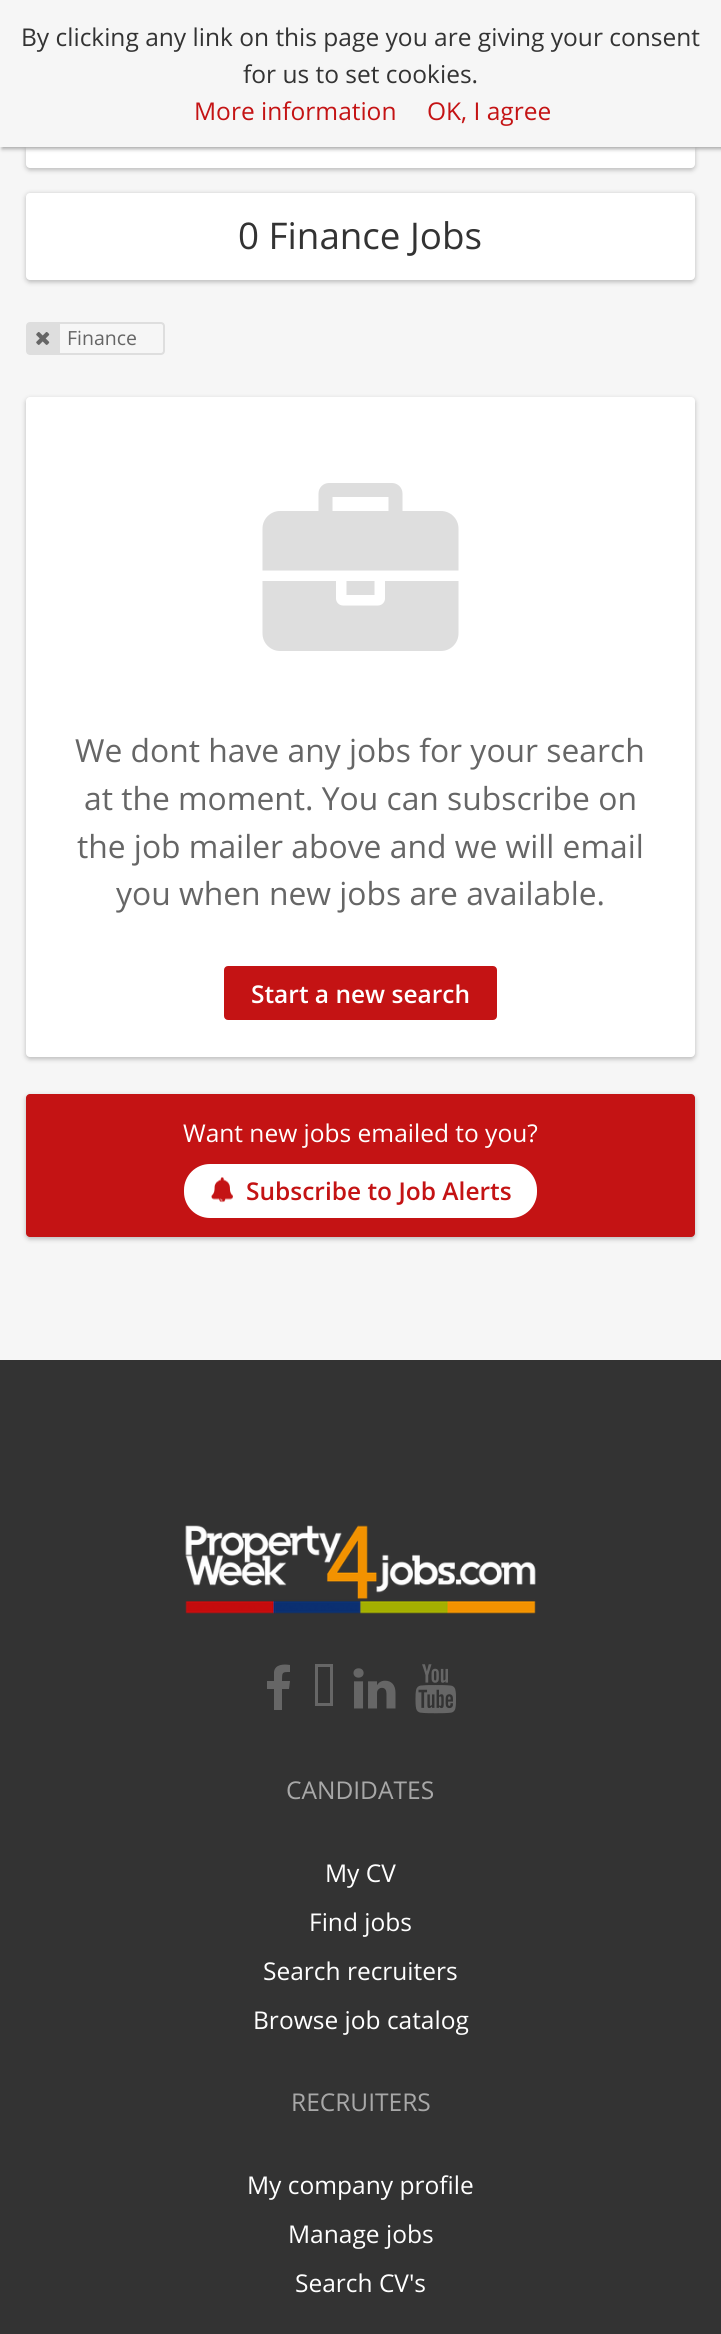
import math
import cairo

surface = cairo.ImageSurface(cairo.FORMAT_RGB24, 721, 2334)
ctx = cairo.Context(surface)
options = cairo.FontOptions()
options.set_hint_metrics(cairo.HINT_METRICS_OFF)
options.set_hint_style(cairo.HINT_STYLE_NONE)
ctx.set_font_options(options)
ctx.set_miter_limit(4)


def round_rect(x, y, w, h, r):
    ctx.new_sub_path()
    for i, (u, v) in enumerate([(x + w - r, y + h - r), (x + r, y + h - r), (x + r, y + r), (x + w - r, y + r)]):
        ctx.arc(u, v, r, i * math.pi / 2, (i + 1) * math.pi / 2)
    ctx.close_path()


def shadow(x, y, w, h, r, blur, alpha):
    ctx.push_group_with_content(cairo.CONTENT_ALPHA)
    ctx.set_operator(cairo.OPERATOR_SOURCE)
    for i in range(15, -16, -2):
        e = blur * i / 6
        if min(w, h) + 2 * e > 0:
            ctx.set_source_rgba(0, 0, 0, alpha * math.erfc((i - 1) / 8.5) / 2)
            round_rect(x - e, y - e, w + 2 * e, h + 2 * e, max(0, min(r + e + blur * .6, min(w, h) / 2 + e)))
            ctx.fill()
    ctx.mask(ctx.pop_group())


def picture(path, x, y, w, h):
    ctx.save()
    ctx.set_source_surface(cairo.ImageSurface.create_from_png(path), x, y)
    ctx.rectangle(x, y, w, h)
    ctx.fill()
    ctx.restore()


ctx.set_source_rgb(0.961, 0.961, 0.961)
ctx.paint()
ctx.set_source_rgb(0, 0, 0)
shadow(26, -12, 669, 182, 4, 2.5, 0.25)
ctx.set_source_rgb(1, 1, 1)
round_rect(26, -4, 669, 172, 4)
ctx.fill()
ctx.set_source_rgb(0.659, 0.659, 0.659)
shadow(2, 2, 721, 147, 0, 2, 1)
ctx.set_source_rgb(0.961, 0.961, 0.961)
ctx.rectangle(0, 0, 721, 147)
ctx.fill()
ctx.select_font_face("Open Sans")
ctx.set_font_size(24.5)
ctx.set_source_rgb(0.2, 0.2, 0.2)
ctx.move_to(21, 46)
ctx.show_text("By clicking any link on this page you are giving your consent")
ctx.move_to(243, 83)
ctx.show_text("for us to set cookies.")
ctx.set_source_rgb(0.769, 0.078, 0.082)
ctx.move_to(194, 120)
ctx.show_text("More information")
ctx.move_to(427, 120)
ctx.show_text("OK, I agree")
ctx.set_source_rgb(0, 0, 0)
shadow(26, 194, 669, 88, 4, 2.5, 0.25)
ctx.set_source_rgb(1, 1, 1)
round_rect(26, 193, 669, 87, 4)
ctx.fill()
ctx.set_font_size(36.75)
ctx.set_source_rgb(0.2, 0.2, 0.2)
ctx.move_to(238, 249)
ctx.show_text("0 Finance Jobs")
round_rect(27, 323, 137, 31, 3)
ctx.set_source_rgb(0.871, 0.871, 0.871)
ctx.stroke()
ctx.rectangle(28, 324, 32, 29)
ctx.fill()
picture("img1.png", 36, 332, 14, 13)
ctx.set_font_size(19.5)
ctx.set_source_rgb(0.4, 0.4, 0.4)
ctx.move_to(67, 345)
ctx.show_text("Finance")
ctx.set_source_rgb(0, 0, 0)
shadow(26, 399, 669, 660, 4, 2.5, 0.25)
ctx.set_source_rgb(1, 1, 1)
round_rect(26, 397, 669, 660, 4)
ctx.fill()
picture("img2.png", 262, 483, 197, 168)
ctx.set_font_size(31.8)
ctx.set_source_rgb(0.4, 0.4, 0.4)
ctx.move_to(75, 762)
ctx.show_text("We dont have any jobs for your search")
ctx.move_to(84, 810)
ctx.show_text("at the moment. You can subscribe on")
ctx.move_to(77, 858)
ctx.show_text("the job mailer above and we will email")
ctx.move_to(116, 905)
ctx.show_text("you when new jobs are available.")
ctx.set_source_rgb(0.769, 0.078, 0.082)
round_rect(225, 967, 271, 52, 3)
ctx.fill_preserve()
ctx.stroke()
ctx.select_font_face("Open Sans SemiBold")
ctx.set_font_size(24.5)
ctx.set_source_rgb(1, 1, 1)
ctx.move_to(251, 1003)
ctx.show_text("Start a new search")
ctx.set_source_rgb(0, 0, 0)
shadow(26, 1096, 669, 143, 4, 2.5, 0.25)
ctx.set_source_rgb(0.769, 0.078, 0.082)
round_rect(26, 1094, 669, 143, 4)
ctx.fill()
ctx.select_font_face("Open Sans")
ctx.set_source_rgb(1, 1, 1)
ctx.move_to(183, 1142)
ctx.show_text("Want new jobs emailed to you?")
round_rect(185, 1165, 351, 52, 25)
ctx.fill_preserve()
ctx.stroke()
picture("img3.png", 211, 1177, 22, 26)
ctx.select_font_face("Open Sans SemiBold")
ctx.set_source_rgb(0.769, 0.078, 0.082)
ctx.move_to(246, 1200)
ctx.show_text("Subscribe to Job Alerts")
ctx.set_source_rgb(0.2, 0.2, 0.2)
ctx.rectangle(0, 1360, 721, 974)
ctx.fill()
picture("img4.png", 185, 1525, 351, 89)
ctx.set_source_rgb(0.4, 0.4, 0.4)
ctx.new_path()
ctx.move_to(290, 1665)
ctx.curve_to(284, 1664, 275, 1664, 274, 1672)
ctx.line_to(274, 1681)
ctx.line_to(267, 1681)
ctx.line_to(267, 1689)
ctx.line_to(274, 1689)
ctx.line_to(274, 1710)
ctx.line_to(282, 1710)
ctx.line_to(282, 1689)
ctx.line_to(289, 1689)
ctx.line_to(290, 1681)
ctx.line_to(282, 1681)
ctx.curve_to(282, 1672, 282, 1672, 290, 1672)
ctx.close_path()
ctx.fill()
ctx.new_path()
ctx.move_to(318, 1703)
ctx.line_to(318, 1667)
ctx.line_to(330, 1667)
ctx.line_to(330, 1703)
ctx.close_path()
ctx.move_to(315, 1706)
ctx.line_to(333, 1706)
ctx.line_to(333, 1664)
ctx.line_to(315, 1664)
ctx.close_path()
ctx.fill()
picture("img5.png", 353, 1668, 43, 41)
picture("img6.png", 415, 1664, 41, 50)
ctx.select_font_face("Open Sans")
ctx.set_source_rgb(0.659, 0.659, 0.659)
ctx.move_to(286, 1799)
ctx.show_text("CANDIDATES")
ctx.set_source_rgb(1, 1, 1)
ctx.move_to(325, 1882)
ctx.show_text("My CV")
ctx.move_to(309, 1931)
ctx.show_text("Find jobs")
ctx.move_to(263, 1980)
ctx.show_text("Search recruiters")
ctx.move_to(253, 2029)
ctx.show_text("Browse job catalog")
ctx.set_source_rgb(0.659, 0.659, 0.659)
ctx.move_to(291, 2111)
ctx.show_text("RECRUITERS")
ctx.set_source_rgb(1, 1, 1)
ctx.move_to(247, 2194)
ctx.show_text("My company profile")
ctx.move_to(288, 2243)
ctx.show_text("Manage jobs")
ctx.move_to(295, 2292)
ctx.show_text("Search CV's")
surface.write_to_png("page.png")
